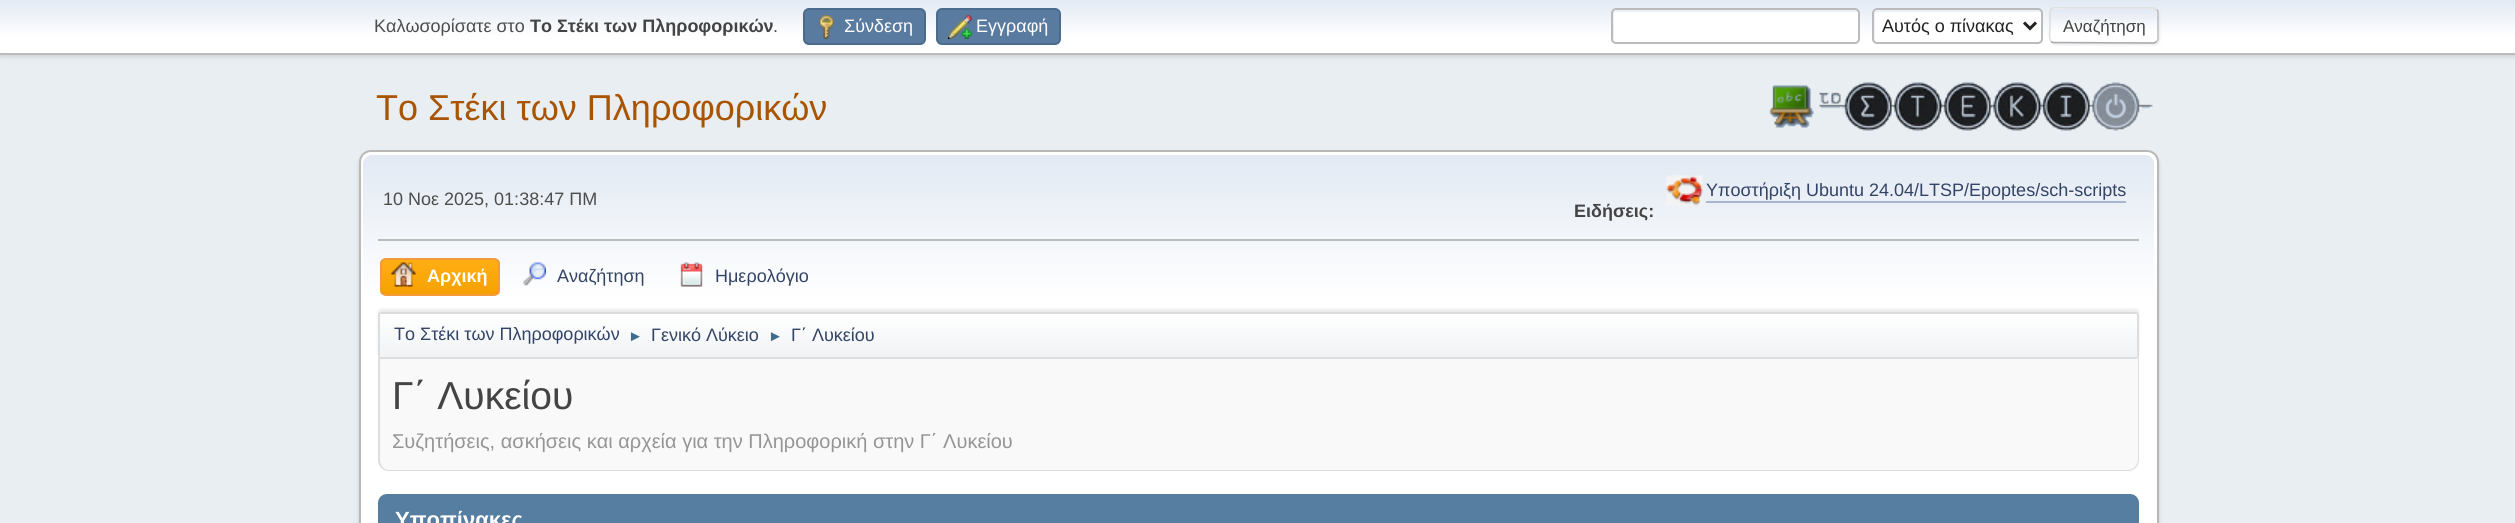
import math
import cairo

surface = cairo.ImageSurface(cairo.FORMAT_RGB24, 2515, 523)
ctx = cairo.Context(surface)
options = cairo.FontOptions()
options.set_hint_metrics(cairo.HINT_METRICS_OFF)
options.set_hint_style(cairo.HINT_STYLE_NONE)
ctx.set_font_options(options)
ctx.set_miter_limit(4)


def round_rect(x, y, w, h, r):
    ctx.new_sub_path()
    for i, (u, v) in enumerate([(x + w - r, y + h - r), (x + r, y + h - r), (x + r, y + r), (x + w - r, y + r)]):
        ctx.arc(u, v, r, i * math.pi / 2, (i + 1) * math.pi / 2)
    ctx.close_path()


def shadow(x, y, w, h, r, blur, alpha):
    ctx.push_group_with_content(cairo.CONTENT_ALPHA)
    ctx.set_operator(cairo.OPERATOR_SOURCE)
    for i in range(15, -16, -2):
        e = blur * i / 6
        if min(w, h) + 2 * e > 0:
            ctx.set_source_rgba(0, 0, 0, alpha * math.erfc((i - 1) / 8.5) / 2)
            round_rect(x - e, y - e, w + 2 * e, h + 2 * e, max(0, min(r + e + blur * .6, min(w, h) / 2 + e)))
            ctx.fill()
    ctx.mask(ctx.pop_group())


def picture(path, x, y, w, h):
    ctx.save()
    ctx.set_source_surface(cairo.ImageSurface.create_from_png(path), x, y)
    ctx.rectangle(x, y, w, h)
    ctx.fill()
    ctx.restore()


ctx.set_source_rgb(0.914, 0.933, 0.949)
ctx.paint()
ctx.set_source_rgb(0, 0, 0)
shadow(0, 2, 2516, 54, 0, 3, 0.16)
gradient = cairo.LinearGradient(1258, 0, 1258, 53)
gradient.add_color_stop_rgba(0, 0.886, 0.914, 0.953, 1)
gradient.add_color_stop_rgba(0.7, 1, 1, 1, 1)
ctx.set_source(gradient)
ctx.rectangle(0, 0, 2515, 53)
ctx.fill()
ctx.set_source_rgb(0.733, 0.733, 0.733)
ctx.rectangle(0, 53, 2515, 2)
ctx.fill()
ctx.select_font_face("Liberation Sans")
ctx.set_font_size(18)
ctx.set_source_rgb(0.302, 0.302, 0.302)
ctx.move_to(374, 32)
ctx.show_text("Καλωσορίσατε στο")
ctx.select_font_face("Liberation Sans", cairo.FONT_SLANT_NORMAL, cairo.FONT_WEIGHT_BOLD)
ctx.set_source_rgb(0.267, 0.267, 0.267)
ctx.move_to(530, 32)
ctx.show_text("Το Στέκι των Πληροφορικών")
ctx.select_font_face("Liberation Sans")
ctx.set_source_rgb(0.302, 0.302, 0.302)
ctx.move_to(773, 32)
ctx.show_text(".")
ctx.set_source_rgb(0.349, 0.482, 0.624)
round_rect(804, 9, 121, 35, 5)
ctx.fill_preserve()
ctx.set_source_rgb(0.29, 0.42, 0.549)
ctx.stroke()
picture("img1.png", 818, 15, 17, 24)
ctx.set_source_rgb(1, 1, 1)
ctx.move_to(844, 32)
ctx.show_text("Σύνδεση")
ctx.set_source_rgb(0.349, 0.482, 0.624)
round_rect(937, 9, 123, 35, 5)
ctx.fill_preserve()
ctx.set_source_rgb(0.29, 0.42, 0.549)
ctx.stroke()
picture("img2.png", 948, 15, 24, 24)
ctx.set_source_rgb(1, 1, 1)
ctx.move_to(976, 32)
ctx.show_text("Εγγραφή")
round_rect(1611, 8, 249, 36, 5)
ctx.fill()
ctx.set_source_rgb(0.925, 0.945, 0.973)
ctx.new_path()
ctx.move_to(1617, 12)
ctx.line_to(1857, 12)
ctx.line_to(1859, 13)
ctx.line_to(1859, 12)
ctx.curve_to(1859, 10, 1858, 9, 1856, 9)
ctx.line_to(1616, 9)
ctx.curve_to(1614, 9, 1613, 10, 1613, 12)
ctx.line_to(1613, 39)
ctx.curve_to(1613, 40, 1613, 41, 1614, 41)
ctx.line_to(1614, 15)
ctx.curve_to(1614, 13, 1615, 12, 1617, 12)
ctx.close_path()
ctx.fill()
round_rect(1612, 9, 247, 34, 4)
ctx.set_source_rgb(0.733, 0.733, 0.733)
ctx.stroke()
ctx.set_source_rgb(1, 1, 1)
round_rect(1872, 8, 171, 36, 5)
ctx.fill()
ctx.set_source_rgb(0.925, 0.945, 0.973)
ctx.new_path()
ctx.move_to(1878, 12)
ctx.line_to(2040, 12)
ctx.line_to(2042, 13)
ctx.line_to(2042, 12)
ctx.curve_to(2042, 10, 2041, 9, 2039, 9)
ctx.line_to(1877, 9)
ctx.curve_to(1875, 9, 1874, 10, 1874, 12)
ctx.line_to(1874, 39)
ctx.curve_to(1874, 40, 1874, 41, 1875, 41)
ctx.line_to(1875, 15)
ctx.curve_to(1875, 13, 1876, 12, 1878, 12)
ctx.close_path()
ctx.fill()
round_rect(1873, 9, 169, 34, 4)
ctx.set_source_rgb(0.733, 0.733, 0.733)
ctx.stroke()
ctx.new_path()
ctx.move_to(2024, 22.5)
ctx.line_to(2030, 28.5)
ctx.line_to(2036, 22.5)
ctx.set_source_rgb(0.133, 0.133, 0.133)
ctx.set_line_width(3)
ctx.stroke()
ctx.move_to(1882, 32)
ctx.show_text("Αυτός ο πίνακας")
ctx.set_source_rgb(0.867, 0.867, 0.867)
shadow(2051, 9, 109, 36, 5, 1, 0.57)
ctx.save()
round_rect(2049, 8, 110, 36, 5)
ctx.clip()
gradient = cairo.LinearGradient(2104, -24, 2104, 9)
gradient.add_color_stop_rgba(0, 0.886, 0.914, 0.953, 1)
gradient.add_color_stop_rgba(0.7, 1, 1, 1, 1)
ctx.set_source(gradient)
ctx.rectangle(2049, 8, 110, 1)
ctx.fill()
gradient = cairo.LinearGradient(2104, 9, 2104, 42)
gradient.add_color_stop_rgba(0, 0.886, 0.914, 0.953, 1)
gradient.add_color_stop_rgba(0.7, 1, 1, 1, 1)
ctx.set_source(gradient)
ctx.rectangle(2049, 9, 110, 33)
ctx.fill()
gradient = cairo.LinearGradient(2104, 42, 2104, 75)
gradient.add_color_stop_rgba(0, 0.886, 0.914, 0.953, 1)
gradient.add_color_stop_rgba(0.7, 1, 1, 1, 1)
ctx.set_source(gradient)
ctx.rectangle(2049, 42, 110, 2)
ctx.fill()
ctx.restore()
ctx.new_path()
ctx.move_to(2156.5, 9.5)
ctx.curve_to(2157.5, 10, 2158, 11, 2158, 12)
ctx.line_to(2158, 39)
ctx.curve_to(2158, 40, 2157.5, 41, 2156.5, 41.5)
ctx.set_source_rgb(0.733, 0.733, 0.733)
ctx.set_line_width(1.5)
ctx.stroke()
ctx.new_path()
ctx.move_to(2156.5, 41.5)
ctx.line_to(2154, 43)
ctx.line_to(2053, 42.5)
ctx.line_to(2051, 41.5)
ctx.set_source_rgb(0.667, 0.667, 0.667)
ctx.stroke()
ctx.new_path()
ctx.move_to(2051, 41.5)
ctx.curve_to(2048.5, 39.5, 2050, 28.5, 2050, 25.5)
ctx.curve_to(2050, 4.5, 2047, 8, 2070, 8)
ctx.line_to(2154, 8)
ctx.line_to(2156.5, 9.5)
ctx.set_source_rgb(0.867, 0.867, 0.867)
ctx.stroke()
ctx.set_font_size(17)
ctx.set_source_rgb(0.267, 0.267, 0.267)
ctx.move_to(2063, 32)
ctx.show_text("Αναζήτηση")
ctx.set_font_size(36)
ctx.set_source_rgb(0.659, 0.329, 0)
ctx.move_to(376, 120)
ctx.show_text("Το Στέκι των Πληροφορικών")
picture("img3.png", 1769, 82, 384, 49)
ctx.set_source_rgb(0, 0, 0)
shadow(359, 153, 1800, 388, 12, 2, 0.14)
ctx.set_source_rgb(1, 1, 1)
round_rect(360, 151, 1798, 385, 11)
ctx.fill_preserve()
ctx.set_source_rgb(0.722, 0.722, 0.722)
ctx.set_line_width(2)
ctx.stroke()
gradient = cairo.LinearGradient(1259, 154, 1259, 362)
gradient.add_color_stop_rgba(0, 0.886, 0.914, 0.953, 1)
gradient.add_color_stop_rgba(0.7, 1, 1, 1, 1)
ctx.set_source(gradient)
ctx.new_path()
ctx.move_to(372, 155)
ctx.line_to(2145, 155)
ctx.curve_to(2150, 155, 2154, 159, 2154, 164)
ctx.line_to(2154, 362)
ctx.line_to(363, 362)
ctx.line_to(363, 164)
ctx.curve_to(363, 159, 367, 155, 372, 155)
ctx.close_path()
ctx.fill()
ctx.set_source_rgb(0.733, 0.733, 0.733)
ctx.rectangle(378, 239, 1761, 2)
ctx.fill()
ctx.set_font_size(18)
ctx.set_source_rgb(0.302, 0.302, 0.302)
ctx.move_to(383, 205)
ctx.show_text("10 Νοε 2025, 01:38:47 ΠΜ")
picture("img4.png", 1666, 175, 37, 31)
ctx.set_source_rgb(0.2, 0.267, 0.4)
ctx.move_to(1706, 196)
ctx.show_text("Υποστήριξη Ubuntu 24.04/LTSP/Epoptes/sch-scripts")
ctx.set_source_rgb(0.659, 0.714, 0.812)
ctx.rectangle(1706, 201, 420, 2)
ctx.fill()
ctx.select_font_face("Liberation Sans", cairo.FONT_SLANT_NORMAL, cairo.FONT_WEIGHT_BOLD)
ctx.set_source_rgb(0.267, 0.267, 0.267)
ctx.move_to(1574, 217)
ctx.show_text("Ειδήσεις:")
ctx.save()
round_rect(380, 258, 120, 38, 6)
ctx.clip()
gradient = cairo.LinearGradient(440, 260, 440, 294)
gradient.add_color_stop_rgba(0, 1, 0.682, 0.078, 1)
gradient.add_color_stop_rgba(1, 0.961, 0.631, 0, 1)
ctx.set_source(gradient)
ctx.rectangle(380, 260, 120, 34)
ctx.fill()
ctx.restore()
round_rect(381, 259, 118, 36, 5)
ctx.set_source_rgb(0.957, 0.604, 0.227)
ctx.stroke()
picture("img5.png", 391, 262, 25, 25)
ctx.set_source_rgb(1, 1, 1)
ctx.move_to(427, 282)
ctx.show_text("Αρχική")
picture("img6.png", 523, 262, 23, 24)
ctx.select_font_face("Liberation Sans")
ctx.set_source_rgb(0.2, 0.267, 0.4)
ctx.move_to(557, 282)
ctx.show_text("Αναζήτηση")
picture("img7.png", 680, 262, 23, 25)
ctx.move_to(715, 282)
ctx.show_text("Ημερολόγιο")
ctx.set_source_rgb(0, 0, 0)
shadow(378, 309, 1761, 47, 3, 1.5, 0.08)
ctx.save()
round_rect(378, 312, 1761, 47, 3)
ctx.clip()
gradient = cairo.LinearGradient(1259, 313, 1259, 357)
gradient.add_color_stop_rgba(0, 1, 1, 1, 1)
gradient.add_color_stop_rgba(0.95, 0.945, 0.953, 0.961, 1)
ctx.set_source(gradient)
ctx.rectangle(378, 314, 1761, 43)
ctx.fill()
ctx.restore()
round_rect(379, 313, 1759, 45, 2)
ctx.set_source_rgb(0.867, 0.867, 0.867)
ctx.stroke()
ctx.set_source_rgb(0.2, 0.267, 0.4)
ctx.move_to(394, 340)
ctx.show_text("Το Στέκι των Πληροφορικών")
ctx.set_font_size(15)
ctx.set_source_rgb(0.247, 0.42, 0.549)
ctx.move_to(628, 341)
ctx.show_text("►")
ctx.set_font_size(18)
ctx.set_source_rgb(0.2, 0.267, 0.4)
ctx.move_to(651, 341)
ctx.show_text("Γενικό Λύκειο")
ctx.set_font_size(15)
ctx.set_source_rgb(0.247, 0.42, 0.549)
ctx.move_to(768, 341)
ctx.show_text("►")
ctx.set_font_size(18)
ctx.set_source_rgb(0.2, 0.267, 0.4)
ctx.move_to(791, 341)
ctx.show_text("Γ΄ Λυκείου")
ctx.set_source_rgb(0.973, 0.973, 0.973)
ctx.new_path()
ctx.move_to(378, 359)
ctx.line_to(2139, 359)
ctx.line_to(2139, 460)
ctx.curve_to(2139, 466, 2134, 471, 2128, 471)
ctx.line_to(389, 471)
ctx.curve_to(383, 471, 378, 466, 378, 460)
ctx.close_path()
ctx.fill()
ctx.set_source_rgb(0.867, 0.867, 0.867)
ctx.set_fill_rule(cairo.FILL_RULE_EVEN_ODD)
ctx.new_path()
ctx.move_to(378, 358)
ctx.line_to(2139, 358)
ctx.line_to(2139, 460)
ctx.curve_to(2139, 466, 2134, 471, 2128, 471)
ctx.line_to(388, 471)
ctx.curve_to(383, 471, 378, 466, 378, 460)
ctx.close_path()
ctx.move_to(380, 358)
ctx.line_to(2138, 358)
ctx.line_to(2138, 460)
ctx.curve_to(2138, 465, 2133, 470, 2128, 470)
ctx.line_to(388, 470)
ctx.curve_to(384, 470, 380, 465, 380, 460)
ctx.close_path()
ctx.fill()
ctx.set_font_size(39)
ctx.set_source_rgb(0.267, 0.267, 0.267)
ctx.move_to(392, 409)
ctx.show_text("Γ΄ Λυκείου")
ctx.set_font_size(20)
ctx.set_source_rgb(0.584, 0.584, 0.584)
ctx.move_to(392, 448)
ctx.show_text("Συζητήσεις, ασκήσεις και αρχεία για την Πληροφορική στην Γ΄ Λυκείου")
ctx.set_source_rgb(0.333, 0.494, 0.627)
ctx.new_path()
ctx.move_to(387, 494)
ctx.line_to(2130, 494)
ctx.curve_to(2135, 494, 2139, 498, 2139, 503)
ctx.line_to(2139, 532)
ctx.line_to(378, 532)
ctx.line_to(378, 503)
ctx.curve_to(378, 498, 382, 494, 387, 494)
ctx.close_path()
ctx.fill()
ctx.select_font_face("Liberation Sans", cairo.FONT_SLANT_NORMAL, cairo.FONT_WEIGHT_BOLD)
ctx.set_font_size(22)
ctx.set_source_rgb(1, 1, 1)
ctx.move_to(395, 527)
ctx.show_text("Υποπίνακες")
surface.write_to_png("page.png")
